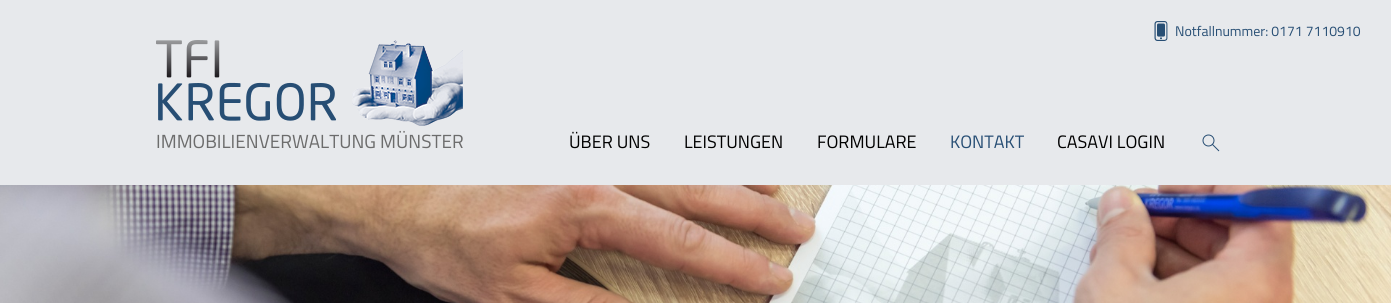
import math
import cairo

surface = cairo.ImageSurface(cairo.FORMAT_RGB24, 1391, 303)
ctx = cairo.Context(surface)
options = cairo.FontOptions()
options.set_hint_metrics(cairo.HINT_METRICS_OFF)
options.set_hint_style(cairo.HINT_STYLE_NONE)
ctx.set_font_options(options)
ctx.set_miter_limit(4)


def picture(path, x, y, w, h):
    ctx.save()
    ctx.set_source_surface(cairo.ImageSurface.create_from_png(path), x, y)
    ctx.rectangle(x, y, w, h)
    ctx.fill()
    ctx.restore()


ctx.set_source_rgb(1, 1, 1)
ctx.paint()
ctx.set_source_rgb(0.906, 0.914, 0.922)
ctx.rectangle(0, 0, 1391, 185)
ctx.fill()
picture("img1.png", 1154, 21, 14, 20)
ctx.select_font_face("Titillium Web")
ctx.set_font_size(14)
ctx.set_source_rgb(0.153, 0.306, 0.455)
ctx.move_to(1175, 36)
ctx.show_text("Notfallnummer: 0171 7110910")
picture("img2.png", 352, 40, 111, 86)
picture("img3.png", 156, 40, 180, 81)
ctx.set_font_size(19)
ctx.set_source_rgb(0.424, 0.424, 0.424)
ctx.move_to(156, 148)
ctx.show_text("IMMOBILIENVERWALTUNG MÜNSTER")
ctx.set_font_size(18)
ctx.set_source_rgb(0, 0, 0)
ctx.move_to(569, 148)
ctx.show_text("ÜBER UNS")
ctx.move_to(684, 148)
ctx.show_text("LEISTUNGEN")
ctx.move_to(817, 148)
ctx.show_text("FORMULARE")
ctx.set_source_rgb(0.153, 0.306, 0.455)
ctx.move_to(950, 148)
ctx.show_text("KONTAKT")
ctx.set_source_rgb(0, 0, 0)
ctx.move_to(1057, 148)
ctx.show_text("CASAVI LOGIN")
ctx.new_path()
ctx.arc(1208.5, 140.5, 5.5, 0, 2 * math.pi)
ctx.set_source_rgb(0.153, 0.302, 0.451)
ctx.set_line_width(1)
ctx.stroke()
ctx.new_path()
ctx.move_to(1212, 144)
ctx.line_to(1219, 151)
ctx.stroke()
picture("img4.png", 0, 185, 1391, 118)
surface.write_to_png("page.png")
